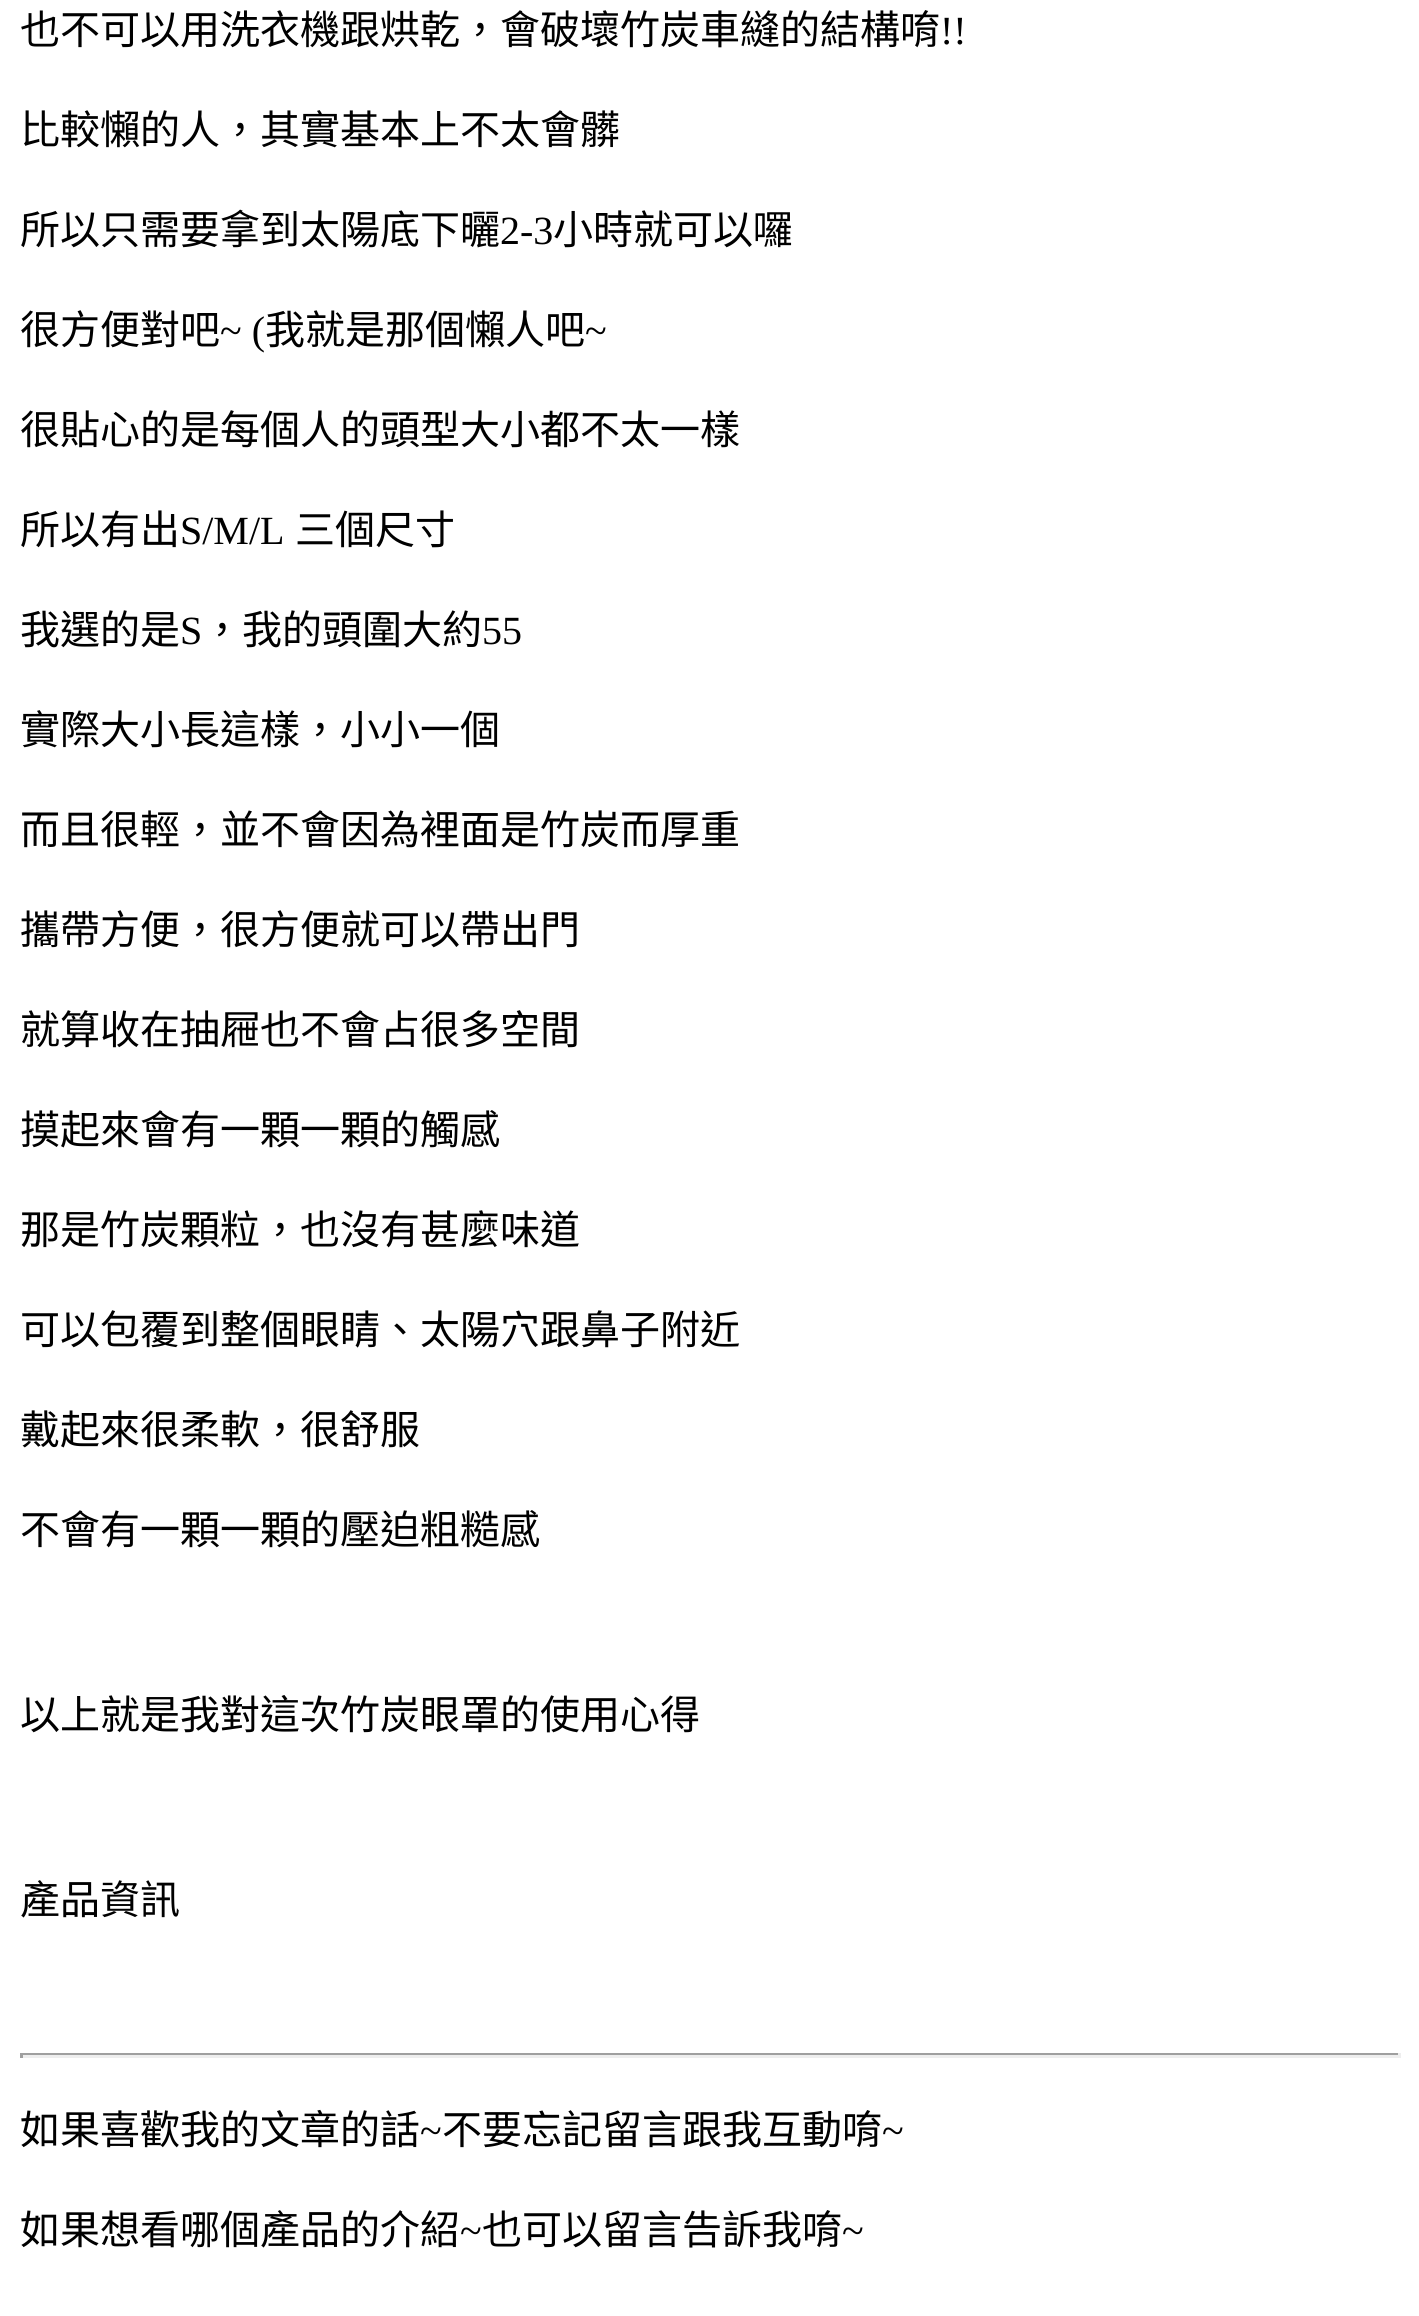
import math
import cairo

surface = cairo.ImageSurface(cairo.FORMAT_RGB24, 1419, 2316)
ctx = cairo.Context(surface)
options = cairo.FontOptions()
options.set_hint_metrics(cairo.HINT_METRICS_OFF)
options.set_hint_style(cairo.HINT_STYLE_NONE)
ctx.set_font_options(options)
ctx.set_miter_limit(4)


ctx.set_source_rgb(1, 1, 1)
ctx.paint()
ctx.select_font_face("Noto Sans CJK TC")
ctx.set_font_size(40)
ctx.set_source_rgb(0, 0, 0)
ctx.move_to(20, 44)
ctx.show_text("也不可以用洗衣機跟烘乾，會破壞竹炭車縫的結構唷")
ctx.select_font_face("Liberation Serif")
ctx.move_to(940, 44)
ctx.show_text("!!")
ctx.select_font_face("Noto Sans CJK TC")
ctx.move_to(20, 144)
ctx.show_text("比較懶的人，其實基本上不太會髒")
ctx.move_to(20, 244)
ctx.show_text("所以只需要拿到太陽底下曬")
ctx.select_font_face("Liberation Serif")
ctx.move_to(500, 244)
ctx.show_text("2-3")
ctx.select_font_face("Noto Sans CJK TC")
ctx.move_to(553, 244)
ctx.show_text("小時就可以囉")
ctx.move_to(20, 344)
ctx.show_text("很方便對吧")
ctx.select_font_face("Liberation Serif")
ctx.move_to(220, 344)
ctx.show_text("~ (")
ctx.select_font_face("Noto Sans CJK TC")
ctx.move_to(265, 344)
ctx.show_text("我就是那個懶人吧")
ctx.select_font_face("Liberation Serif")
ctx.move_to(585, 344)
ctx.show_text("~")
ctx.select_font_face("Noto Sans CJK TC")
ctx.move_to(20, 444)
ctx.show_text("很貼心的是每個人的頭型大小都不太一樣")
ctx.move_to(20, 544)
ctx.show_text("所以有出")
ctx.select_font_face("Liberation Serif")
ctx.move_to(180, 544)
ctx.show_text("S/M/L")
ctx.select_font_face("Noto Sans CJK TC")
ctx.move_to(295, 544)
ctx.show_text("三個尺寸")
ctx.move_to(20, 644)
ctx.show_text("我選的是")
ctx.select_font_face("Liberation Serif")
ctx.move_to(180, 644)
ctx.show_text("S")
ctx.select_font_face("Noto Sans CJK TC")
ctx.move_to(202, 644)
ctx.show_text("，我的頭圍大約")
ctx.select_font_face("Liberation Serif")
ctx.move_to(482, 644)
ctx.show_text("55")
ctx.select_font_face("Noto Sans CJK TC")
ctx.move_to(20, 744)
ctx.show_text("實際大小長這樣，小小一個")
ctx.move_to(20, 844)
ctx.show_text("而且很輕，並不會因為裡面是竹炭而厚重")
ctx.move_to(20, 944)
ctx.show_text("攜帶方便，很方便就可以帶出門")
ctx.move_to(20, 1044)
ctx.show_text("就算收在抽屜也不會占很多空間")
ctx.move_to(20, 1144)
ctx.show_text("摸起來會有一顆一顆的觸感")
ctx.move_to(20, 1244)
ctx.show_text("那是竹炭顆粒，也沒有甚麼味道")
ctx.move_to(20, 1344)
ctx.show_text("可以包覆到整個眼睛、太陽穴跟鼻子附近")
ctx.move_to(20, 1444)
ctx.show_text("戴起來很柔軟，很舒服")
ctx.move_to(20, 1544)
ctx.show_text("不會有一顆一顆的壓迫粗糙感")
ctx.move_to(20, 1729)
ctx.show_text("以上就是我對這次竹炭眼罩的使用心得")
ctx.move_to(20, 1914)
ctx.show_text("產品資訊")
ctx.set_source_rgb(0.624, 0.624, 0.624)
ctx.rectangle(20, 2053, 1380, 2)
ctx.fill()
ctx.set_source_rgb(0.933, 0.933, 0.933)
ctx.rectangle(1398, 2053, 3, 5)
ctx.fill()
ctx.rectangle(20, 2055, 1380, 3)
ctx.fill()
ctx.set_source_rgb(0.624, 0.624, 0.624)
ctx.rectangle(20, 2053, 3, 5)
ctx.fill()
ctx.set_source_rgb(0, 0, 0)
ctx.move_to(20, 2144)
ctx.show_text("如果喜歡我的文章的話")
ctx.select_font_face("Liberation Serif")
ctx.move_to(420, 2144)
ctx.show_text("~")
ctx.select_font_face("Noto Sans CJK TC")
ctx.move_to(442, 2144)
ctx.show_text("不要忘記留言跟我互動唷")
ctx.select_font_face("Liberation Serif")
ctx.move_to(882, 2144)
ctx.show_text("~")
ctx.select_font_face("Noto Sans CJK TC")
ctx.move_to(20, 2244)
ctx.show_text("如果想看哪個產品的介紹")
ctx.select_font_face("Liberation Serif")
ctx.move_to(460, 2244)
ctx.show_text("~")
ctx.select_font_face("Noto Sans CJK TC")
ctx.move_to(482, 2244)
ctx.show_text("也可以留言告訴我唷")
ctx.select_font_face("Liberation Serif")
ctx.move_to(842, 2244)
ctx.show_text("~")
surface.write_to_png("page.png")
